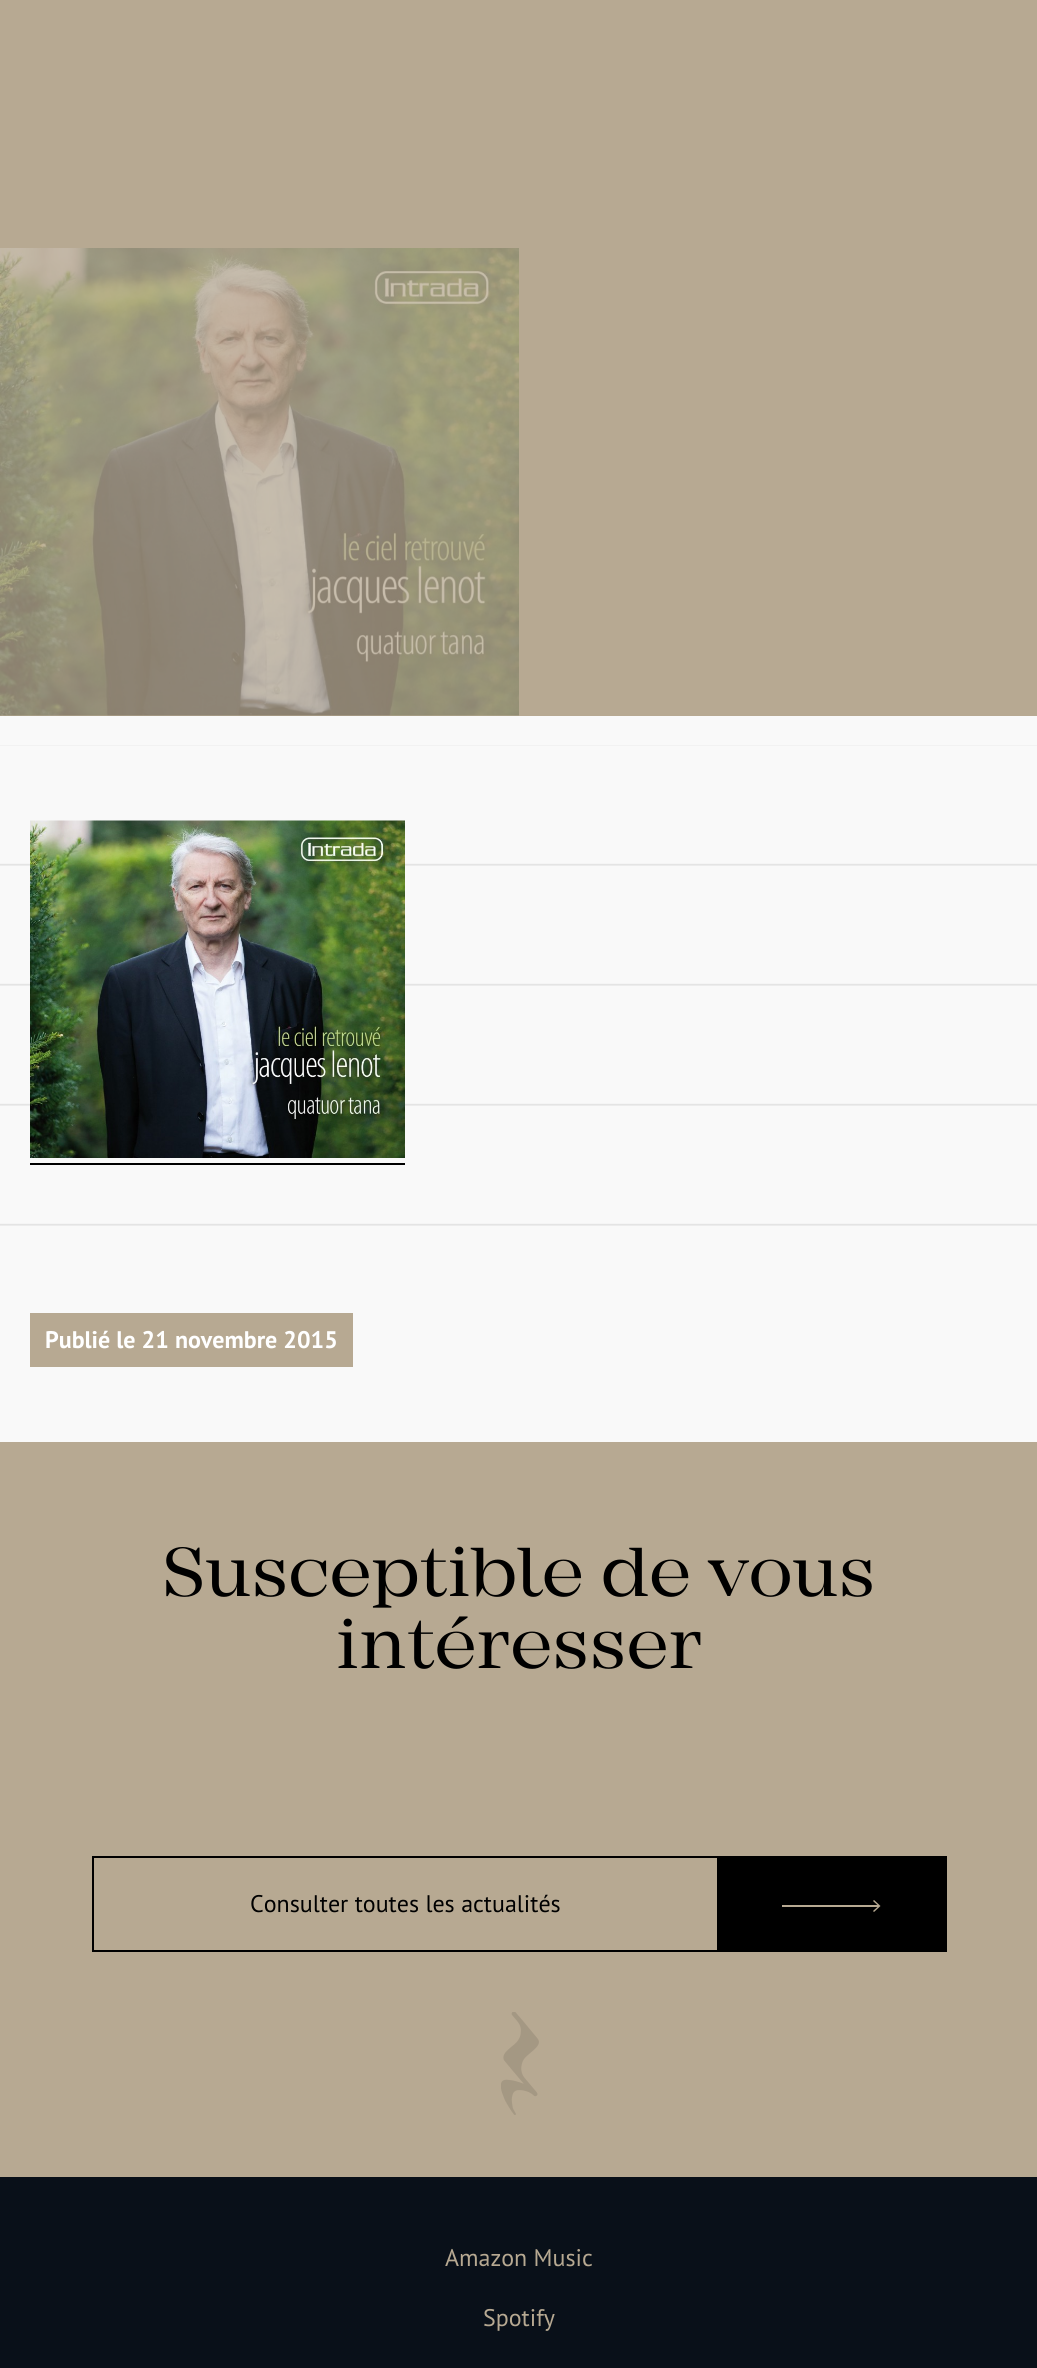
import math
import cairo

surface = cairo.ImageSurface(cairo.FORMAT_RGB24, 1037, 2368)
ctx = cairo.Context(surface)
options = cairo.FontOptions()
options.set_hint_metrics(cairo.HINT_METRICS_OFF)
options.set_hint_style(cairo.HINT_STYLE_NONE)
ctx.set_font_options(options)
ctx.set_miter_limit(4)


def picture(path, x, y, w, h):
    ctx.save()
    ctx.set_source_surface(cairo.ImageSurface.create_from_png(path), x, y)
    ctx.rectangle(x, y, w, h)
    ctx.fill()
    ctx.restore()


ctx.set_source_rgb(0.718, 0.663, 0.573)
ctx.paint()
picture("img1.png", 0, 248, 519, 468)
ctx.set_source_rgb(0.976, 0.976, 0.976)
ctx.rectangle(0, 716, 1037, 30)
ctx.fill()
ctx.rectangle(0, 746, 1037, 696)
ctx.fill()
picture("img2.png", 0, 745, 1037, 481)
picture("img3.png", 30, 820, 375, 338)
ctx.set_source_rgb(0, 0, 0)
ctx.rectangle(30, 1163, 375, 2)
ctx.fill()
ctx.set_source_rgb(0.718, 0.663, 0.573)
ctx.rectangle(30, 1313, 323, 54)
ctx.fill()
ctx.select_font_face("PT Sans", cairo.FONT_SLANT_NORMAL, cairo.FONT_WEIGHT_BOLD)
ctx.set_font_size(24)
ctx.set_source_rgb(1, 1, 1)
ctx.move_to(45, 1348)
ctx.show_text("Publié le 21 novembre 2015")
ctx.select_font_face("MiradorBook")
ctx.set_font_size(72)
ctx.set_source_rgb(0, 0, 0)
ctx.move_to(162, 1596)
ctx.show_text("Susceptible de vous")
ctx.move_to(336, 1668)
ctx.show_text("intéresser")
ctx.rectangle(93, 1857, 853, 94)
ctx.stroke()
ctx.select_font_face("PT Sans")
ctx.set_font_size(24)
ctx.move_to(250, 1912)
ctx.show_text("Consulter toutes les actualités")
ctx.rectangle(717, 1858, 228, 92)
ctx.fill()
ctx.set_source_rgb(0.718, 0.663, 0.573)
ctx.rectangle(782, 1905, 97, 2)
ctx.fill()
ctx.new_path()
ctx.move_to(874, 1912)
ctx.line_to(873, 1911)
ctx.line_to(878.5, 1906)
ctx.line_to(873, 1901)
ctx.line_to(874, 1900)
ctx.line_to(880.5, 1906)
ctx.close_path()
ctx.fill()
picture("img4.png", 501, 2012, 38, 103)
ctx.set_source_rgb(0.039, 0.063, 0.098)
ctx.rectangle(0, 2177, 1037, 191)
ctx.fill()
ctx.set_source_rgb(0.718, 0.663, 0.573)
ctx.move_to(445, 2266)
ctx.show_text("Amazon Music")
ctx.move_to(483, 2326)
ctx.show_text("Spotify")
surface.write_to_png("page.png")
